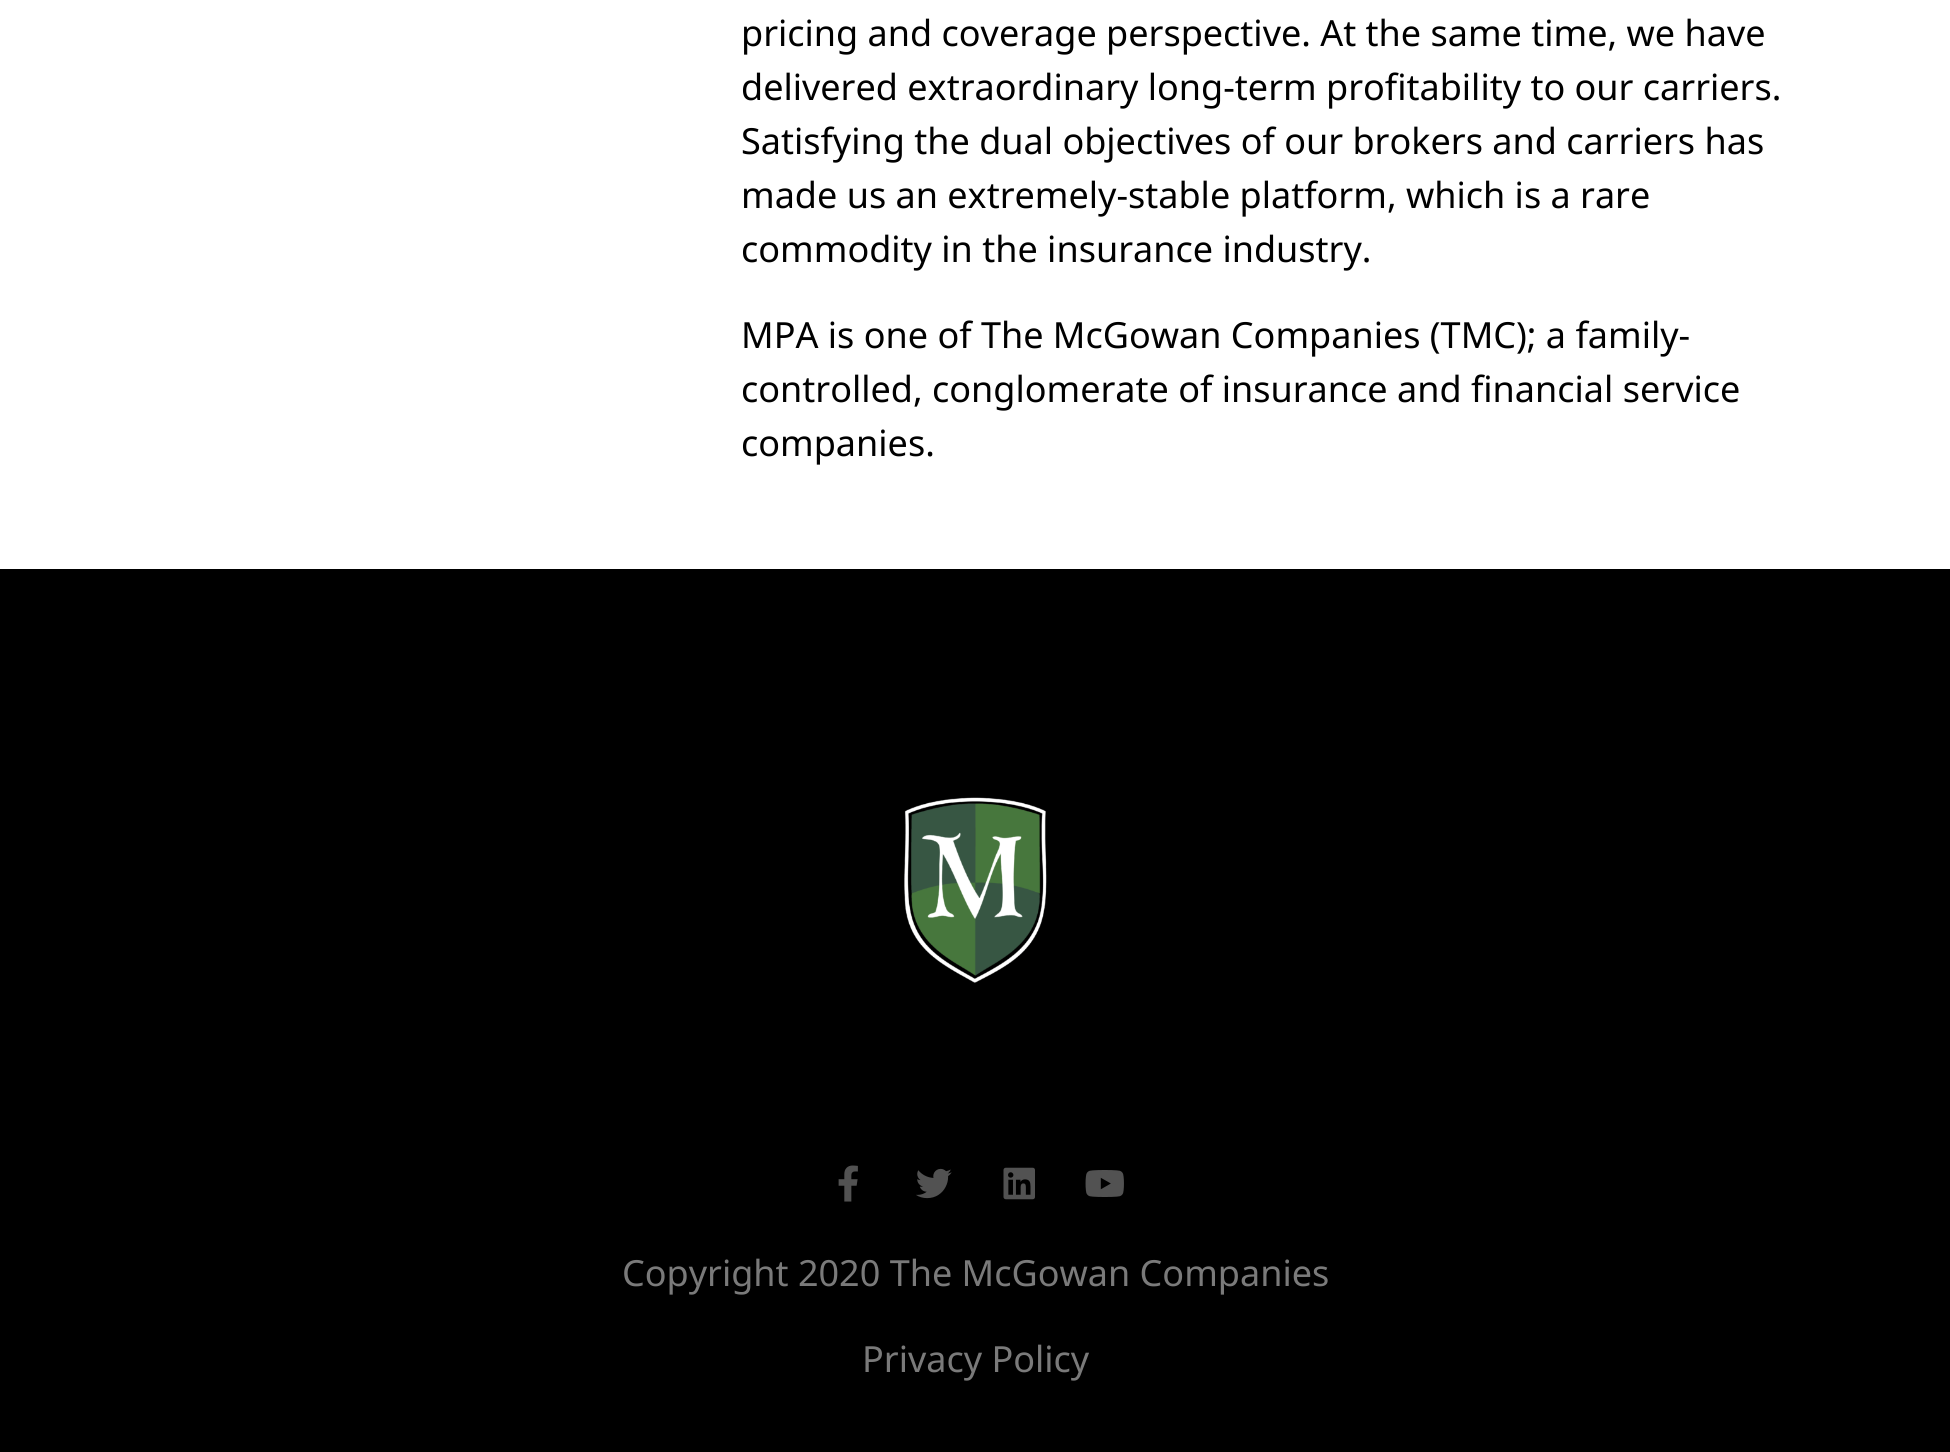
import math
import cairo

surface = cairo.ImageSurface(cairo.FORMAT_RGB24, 1950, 1452)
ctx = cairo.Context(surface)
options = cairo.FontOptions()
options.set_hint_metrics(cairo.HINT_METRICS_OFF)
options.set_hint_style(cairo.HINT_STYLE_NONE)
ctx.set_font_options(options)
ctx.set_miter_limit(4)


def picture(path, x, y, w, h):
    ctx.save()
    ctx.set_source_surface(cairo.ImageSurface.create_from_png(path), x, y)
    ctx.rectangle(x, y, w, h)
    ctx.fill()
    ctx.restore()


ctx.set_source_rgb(1, 1, 1)
ctx.paint()
ctx.select_font_face("Noto Sans")
ctx.set_font_size(36)
ctx.set_source_rgb(0, 0, 0)
ctx.move_to(741, 46)
ctx.show_text("pricing and coverage perspective. At the same time, we have")
ctx.move_to(741, 100)
ctx.show_text("delivered extraordinary long-term profitability to our carriers.")
ctx.move_to(741, 154)
ctx.show_text("Satisfying the dual objectives of our brokers and carriers has")
ctx.move_to(741, 208)
ctx.show_text("made us an extremely-stable platform, which is a rare")
ctx.move_to(741, 262)
ctx.show_text("commodity in the insurance industry.")
ctx.move_to(741, 348)
ctx.show_text("MPA is one of The McGowan Companies (TMC); a family-")
ctx.move_to(741, 402)
ctx.show_text("controlled, conglomerate of insurance and financial service")
ctx.move_to(741, 456)
ctx.show_text("companies.")
ctx.rectangle(0, 569, 1950, 883)
ctx.fill()
picture("img1.png", 904, 797, 143, 186)
picture("img2.png", 838, 1165, 20, 37)
picture("img3.png", 916, 1168, 36, 31)
picture("img4.png", 1003, 1167, 32, 33)
picture("img5.png", 1085, 1170, 39, 27)
ctx.set_source_rgb(0.478, 0.478, 0.478)
ctx.move_to(622, 1286)
ctx.show_text("Copyright 2020 The McGowan Companies")
ctx.move_to(862, 1372)
ctx.show_text("Privacy Policy")
surface.write_to_png("page.png")
